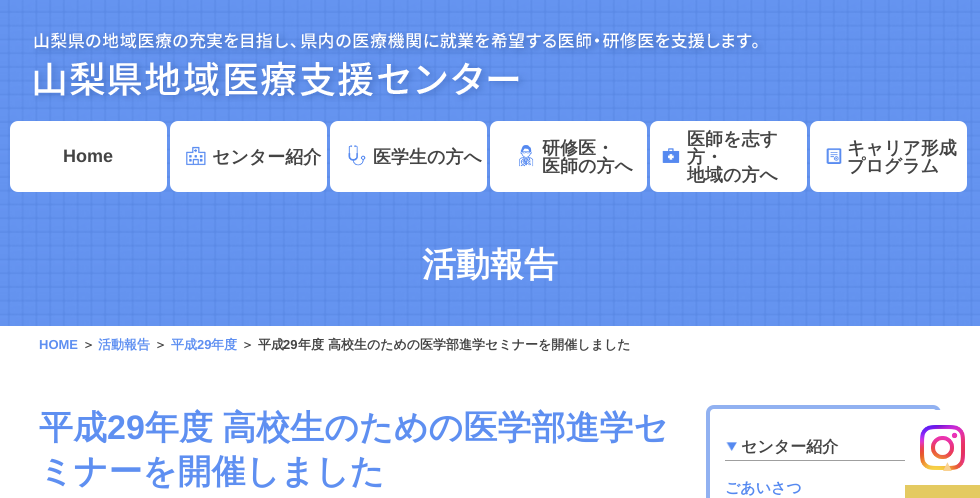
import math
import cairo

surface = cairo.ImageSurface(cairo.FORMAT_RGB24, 980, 498)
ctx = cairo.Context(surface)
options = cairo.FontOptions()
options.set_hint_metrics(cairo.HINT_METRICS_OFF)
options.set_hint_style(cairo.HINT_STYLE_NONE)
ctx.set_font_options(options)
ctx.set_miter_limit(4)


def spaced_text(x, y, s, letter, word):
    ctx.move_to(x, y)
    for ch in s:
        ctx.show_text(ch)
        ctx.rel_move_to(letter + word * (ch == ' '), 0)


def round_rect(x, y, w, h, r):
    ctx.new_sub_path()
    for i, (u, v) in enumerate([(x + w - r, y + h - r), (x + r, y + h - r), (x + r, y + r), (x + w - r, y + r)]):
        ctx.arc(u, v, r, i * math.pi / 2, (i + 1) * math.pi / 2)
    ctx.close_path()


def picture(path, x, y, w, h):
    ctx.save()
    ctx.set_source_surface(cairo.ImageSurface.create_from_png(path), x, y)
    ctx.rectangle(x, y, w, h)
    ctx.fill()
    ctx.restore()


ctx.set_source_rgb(1, 1, 1)
ctx.paint()
picture("img1.png", 0, 0, 980, 326)
picture("img2.png", 33, 31, 731, 71)
ctx.set_source_rgb(1, 1, 1)
round_rect(10, 121, 157, 71, 8)
ctx.fill()
ctx.select_font_face("Liberation Sans", cairo.FONT_SLANT_NORMAL, cairo.FONT_WEIGHT_BOLD)
ctx.set_font_size(18)
ctx.set_source_rgb(0.267, 0.267, 0.267)
ctx.move_to(63, 162)
ctx.show_text("Home")
ctx.set_source_rgb(1, 1, 1)
round_rect(170, 121, 157, 71, 8)
ctx.fill()
picture("img3.png", 186, 146, 20, 20)
ctx.select_font_face("WenQuanYi Zen Hei", cairo.FONT_SLANT_NORMAL, cairo.FONT_WEIGHT_BOLD)
ctx.set_source_rgb(0.267, 0.267, 0.267)
ctx.move_to(212, 163)
ctx.show_text("センター紹介")
ctx.set_source_rgb(1, 1, 1)
round_rect(330, 121, 157, 71, 8)
ctx.fill()
picture("img4.png", 348, 145, 18, 21)
ctx.set_source_rgb(0.267, 0.267, 0.267)
ctx.move_to(373, 163)
ctx.show_text("医学⽣の⽅へ")
ctx.set_source_rgb(1, 1, 1)
round_rect(490, 121, 157, 71, 8)
ctx.fill()
picture("img5.png", 519, 145, 15, 22)
ctx.set_source_rgb(0.267, 0.267, 0.267)
ctx.move_to(542, 154)
ctx.show_text("研修医・")
ctx.move_to(542, 172)
ctx.show_text("医師の方へ")
ctx.set_source_rgb(1, 1, 1)
round_rect(650, 121, 157, 71, 8)
ctx.fill()
ctx.set_source_rgb(0.267, 0.267, 0.267)
ctx.move_to(687, 145)
ctx.show_text("医師を志す")
picture("img6.png", 662, 148, 18, 15)
ctx.move_to(687, 163)
ctx.show_text("方・")
ctx.move_to(687, 181)
ctx.show_text("地域の方へ")
ctx.set_source_rgb(1, 1, 1)
round_rect(810, 121, 157, 71, 8)
ctx.fill()
picture("img7.png", 826, 148, 16, 16)
ctx.set_source_rgb(0.267, 0.267, 0.267)
ctx.move_to(847, 154)
ctx.show_text("キャリア形成")
ctx.move_to(847, 172)
ctx.show_text("プログラム")
ctx.set_font_size(34)
ctx.set_source_rgb(1, 1, 1)
ctx.move_to(422, 276)
ctx.show_text("活動報告")
round_rect(708, 407, 231, 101, 6)
ctx.set_source_rgb(0.569, 0.694, 0.945)
ctx.set_line_width(4)
ctx.stroke()
ctx.set_source_rgb(1, 1, 1)
ctx.new_path()
ctx.move_to(913, 410)
ctx.line_to(980, 410)
ctx.line_to(980, 485)
ctx.line_to(905, 485)
ctx.line_to(905, 418)
ctx.curve_to(905, 413.5, 908.5, 410, 913, 410)
ctx.close_path()
ctx.fill()
picture("img8.png", 920, 425, 45, 45)
ctx.set_source_rgb(0.894, 0.792, 0.38)
ctx.new_path()
ctx.move_to(905, 485)
ctx.line_to(980, 485)
ctx.line_to(980, 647)
ctx.line_to(912, 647)
ctx.curve_to(908, 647, 905, 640, 905, 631)
ctx.close_path()
ctx.fill()
ctx.select_font_face("Liberation Sans", cairo.FONT_SLANT_NORMAL, cairo.FONT_WEIGHT_BOLD)
ctx.set_font_size(13)
ctx.set_source_rgb(0.369, 0.561, 0.945)
ctx.move_to(39, 349)
ctx.show_text("HOME")
ctx.select_font_face("WenQuanYi Zen Hei", cairo.FONT_SLANT_NORMAL, cairo.FONT_WEIGHT_BOLD)
ctx.set_source_rgb(0.267, 0.267, 0.267)
ctx.move_to(82, 349)
ctx.show_text("＞")
ctx.set_source_rgb(0.369, 0.561, 0.945)
ctx.move_to(98, 349)
ctx.show_text("活動報告")
ctx.set_source_rgb(0.267, 0.267, 0.267)
ctx.move_to(154, 349)
ctx.show_text("＞")
ctx.set_source_rgb(0.369, 0.561, 0.945)
ctx.move_to(171, 349)
ctx.show_text("平成")
ctx.select_font_face("Liberation Sans", cairo.FONT_SLANT_NORMAL, cairo.FONT_WEIGHT_BOLD)
ctx.move_to(197, 349)
ctx.show_text("29")
ctx.select_font_face("WenQuanYi Zen Hei", cairo.FONT_SLANT_NORMAL, cairo.FONT_WEIGHT_BOLD)
ctx.move_to(211, 349)
ctx.show_text("年度")
ctx.set_source_rgb(0.267, 0.267, 0.267)
ctx.move_to(241, 349)
ctx.show_text("＞ 平成")
ctx.select_font_face("Liberation Sans", cairo.FONT_SLANT_NORMAL, cairo.FONT_WEIGHT_BOLD)
ctx.move_to(283, 349)
ctx.show_text("29")
ctx.select_font_face("WenQuanYi Zen Hei", cairo.FONT_SLANT_NORMAL, cairo.FONT_WEIGHT_BOLD)
ctx.move_to(298, 349)
ctx.show_text("年度 高校生のための医学部進学セミナーを開催しました")
ctx.set_font_size(34)
ctx.set_source_rgb(0.369, 0.561, 0.945)
ctx.move_to(39, 439)
ctx.show_text("平成")
ctx.select_font_face("Liberation Sans", cairo.FONT_SLANT_NORMAL, cairo.FONT_WEIGHT_BOLD)
ctx.move_to(107, 439)
ctx.show_text("29")
ctx.select_font_face("WenQuanYi Zen Hei", cairo.FONT_SLANT_NORMAL, cairo.FONT_WEIGHT_BOLD)
spaced_text(145, 439, "年度 高校生のための医学部進学セ", 0, -1)
ctx.move_to(39, 483)
ctx.show_text("ミナーを開催しました")
ctx.set_source_rgb(0.624, 0.624, 0.624)
ctx.rectangle(725, 460, 180, 1)
ctx.fill()
picture("img9.png", 726, 442, 11, 9)
ctx.set_font_size(16)
ctx.set_source_rgb(0.267, 0.267, 0.267)
ctx.move_to(741, 452)
ctx.show_text("センター紹介")
ctx.set_font_size(15)
ctx.set_source_rgb(0.333, 0.537, 0.941)
ctx.move_to(725, 493)
ctx.show_text("ごあいさつ")
ctx.select_font_face("Liberation Sans", cairo.FONT_SLANT_NORMAL, cairo.FONT_WEIGHT_BOLD)
ctx.set_source_rgb(0.973, 0.82, 0.565)
ctx.move_to(940, 471)
ctx.show_text("▲")
surface.write_to_png("page.png")
